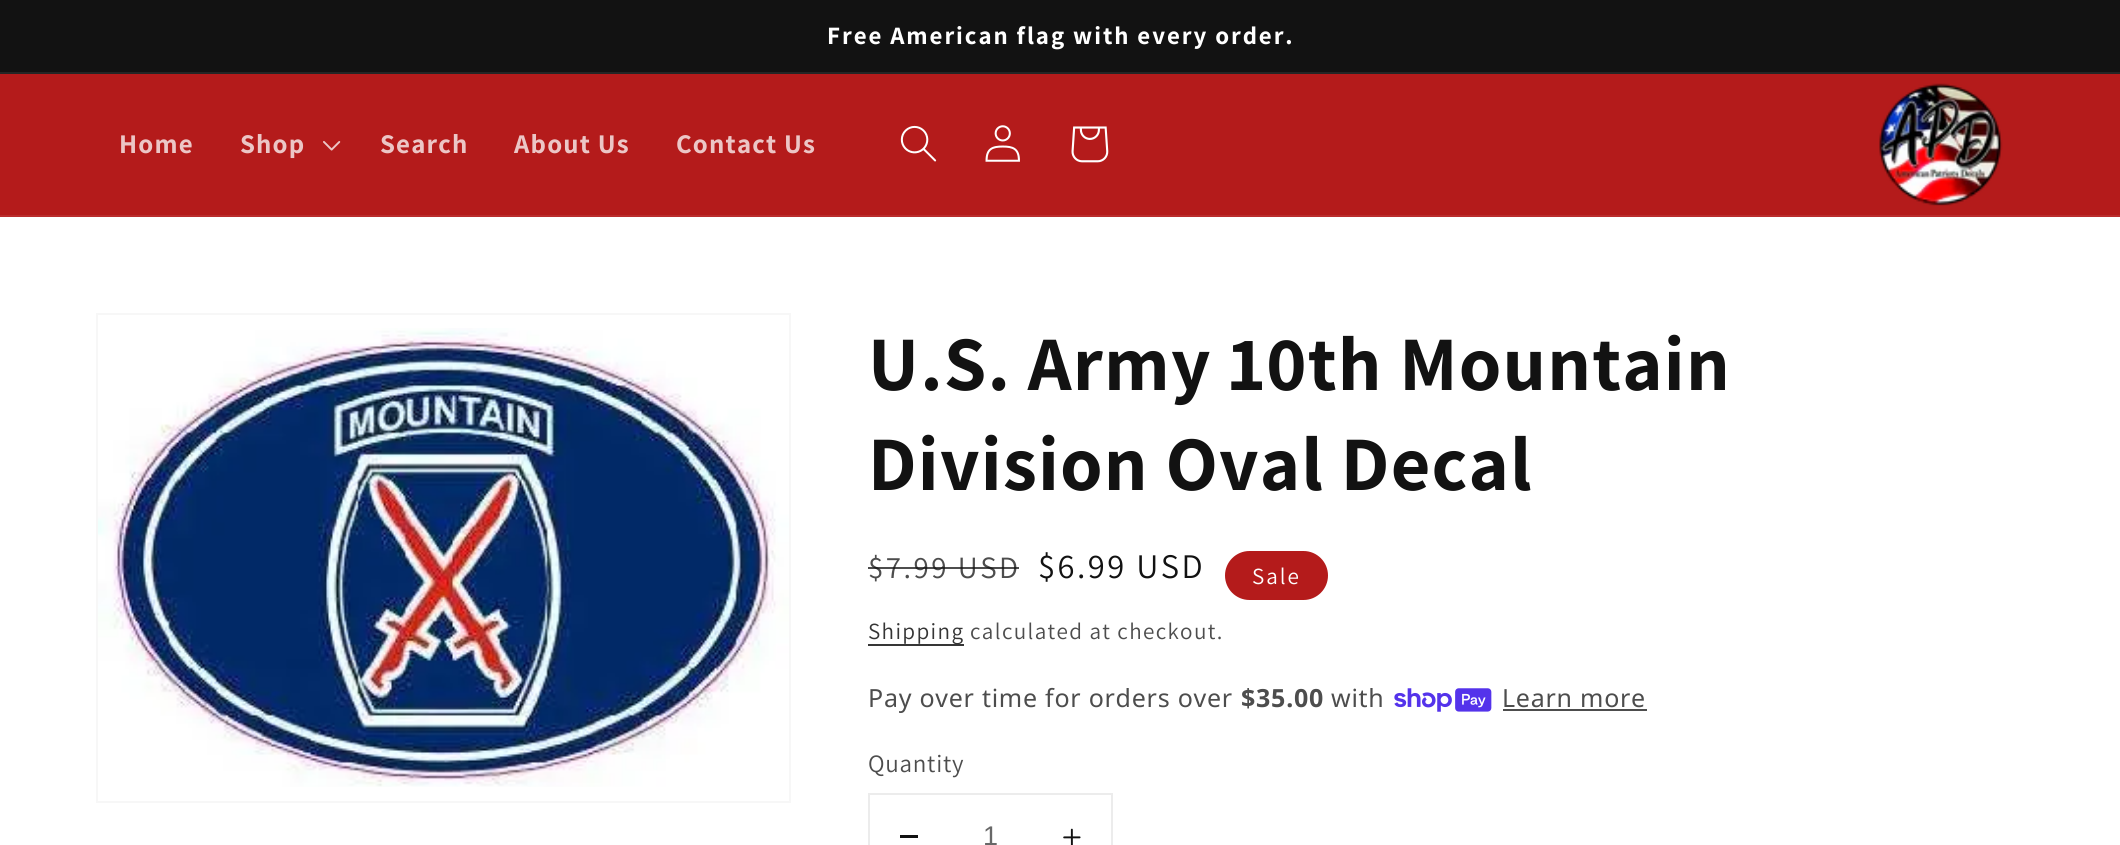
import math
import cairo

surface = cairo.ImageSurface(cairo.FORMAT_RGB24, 2120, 845)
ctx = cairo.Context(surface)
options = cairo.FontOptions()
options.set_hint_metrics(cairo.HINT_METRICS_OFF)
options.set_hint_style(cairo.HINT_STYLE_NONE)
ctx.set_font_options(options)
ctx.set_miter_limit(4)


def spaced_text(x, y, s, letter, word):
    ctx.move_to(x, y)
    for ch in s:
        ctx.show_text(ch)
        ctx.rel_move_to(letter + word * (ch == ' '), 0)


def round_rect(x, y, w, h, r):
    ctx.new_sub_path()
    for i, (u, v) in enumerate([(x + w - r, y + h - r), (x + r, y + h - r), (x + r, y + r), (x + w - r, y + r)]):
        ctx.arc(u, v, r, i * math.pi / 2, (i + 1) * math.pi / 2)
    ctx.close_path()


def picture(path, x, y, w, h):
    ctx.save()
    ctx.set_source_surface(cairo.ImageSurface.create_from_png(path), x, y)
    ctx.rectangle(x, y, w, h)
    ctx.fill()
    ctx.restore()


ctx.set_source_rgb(1, 1, 1)
ctx.paint()
ctx.set_source_rgb(0.071, 0.071, 0.071)
ctx.rectangle(0, 0, 2120, 72)
ctx.fill()
ctx.set_source_rgb(0.145, 0.145, 0.145)
ctx.rectangle(0, 72, 2120, 2)
ctx.fill()
ctx.select_font_face("Assistant", cairo.FONT_SLANT_NORMAL, cairo.FONT_WEIGHT_BOLD)
ctx.set_font_size(25)
ctx.set_source_rgb(1, 1, 1)
spaced_text(827, 44, "Free American flag with every order.", 1.95, 0)
ctx.set_source_rgb(0.706, 0.106, 0.106)
ctx.rectangle(0, 74, 2120, 141)
ctx.fill()
ctx.set_source_rgb(0.729, 0.176, 0.176)
ctx.rectangle(0, 215, 2120, 2)
ctx.fill()
ctx.set_font_size(27)
ctx.set_source_rgb(0.925, 0.776, 0.776)
spaced_text(119, 153, "Home", 1.2, 0)
spaced_text(240, 153, "Shop", 1.2, 0)
picture("img1.png", 323, 141, 18, 10)
spaced_text(380, 153, "Search", 1.2, 0)
spaced_text(514, 153, "About Us", 1.2, 0)
spaced_text(676, 153, "Contact Us", 1.2, 0)
picture("img2.png", 900, 125, 37, 37)
picture("img3.png", 985, 125, 35, 37)
picture("img4.png", 1071, 126, 38, 37)
picture("img5.png", 1879, 83, 124, 123)
ctx.rectangle(97, 314, 693, 488)
ctx.set_source_rgb(0.965, 0.965, 0.965)
ctx.stroke()
picture("img6.png", 98, 328, 691, 459)
ctx.set_font_size(77)
ctx.set_source_rgb(0.071, 0.071, 0.071)
spaced_text(868, 390, "U.S. Army 10th Mountain", 1.2, 0)
spaced_text(868, 490, "Division Oval Decal", 1.2, 0)
ctx.select_font_face("Assistant")
ctx.set_font_size(31)
ctx.set_source_rgb(0.302, 0.302, 0.302)
spaced_text(868, 578, "$7.99 USD", 2.5, 0)
ctx.set_source_rgba(0.071, 0.071, 0.071, 0.75)
ctx.rectangle(868, 567, 151, 2)
ctx.fill()
ctx.set_font_size(34.5)
ctx.set_source_rgb(0.071, 0.071, 0.071)
spaced_text(1038, 578, "$6.99 USD", 2.5, 0)
ctx.set_source_rgb(0.706, 0.106, 0.106)
round_rect(1226, 552, 101, 47, 23.5)
ctx.fill_preserve()
ctx.stroke()
ctx.set_font_size(23.1)
ctx.set_source_rgb(1, 1, 1)
spaced_text(1252, 584, "Sale", 1.95, 0)
ctx.set_source_rgb(0.212, 0.212, 0.212)
ctx.rectangle(868, 644, 96, 2)
ctx.fill()
ctx.set_source_rgb(0.208, 0.208, 0.208)
spaced_text(868, 639, "Shipping", 1.35, 0)
ctx.set_source_rgb(0.302, 0.302, 0.302)
spaced_text(970, 639, "calculated at checkout.", 1.35, 0)
ctx.select_font_face("Noto Sans")
ctx.set_font_size(25)
spaced_text(868, 707, "Pay over time for orders over", 0.75, 0)
ctx.select_font_face("Noto Sans", cairo.FONT_SLANT_NORMAL, cairo.FONT_WEIGHT_BOLD)
spaced_text(1241, 707, "$35.00", 0.75, 0)
ctx.select_font_face("Noto Sans")
spaced_text(1331, 707, "with", 0.75, 0)
picture("img7.png", 1394, 688, 98, 24)
spaced_text(1502, 707, "Learn more", 0.75, 0)
ctx.rectangle(1503, 709, 144, 2)
ctx.fill()
ctx.select_font_face("Assistant")
spaced_text(868, 772, "Quantity", 0.75, 0)
ctx.rectangle(869, 794, 243, 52)
ctx.set_source_rgb(0.925, 0.925, 0.925)
ctx.stroke()
ctx.set_source_rgb(0.071, 0.071, 0.071)
ctx.rectangle(900, 835, 18, 3)
ctx.fill()
ctx.select_font_face("Liberation Sans")
ctx.set_font_size(27)
ctx.set_source_rgb(0.408, 0.408, 0.408)
ctx.move_to(983, 845)
ctx.show_text("1")
picture("img8.png", 1063, 828, 18, 17)
surface.write_to_png("page.png")
